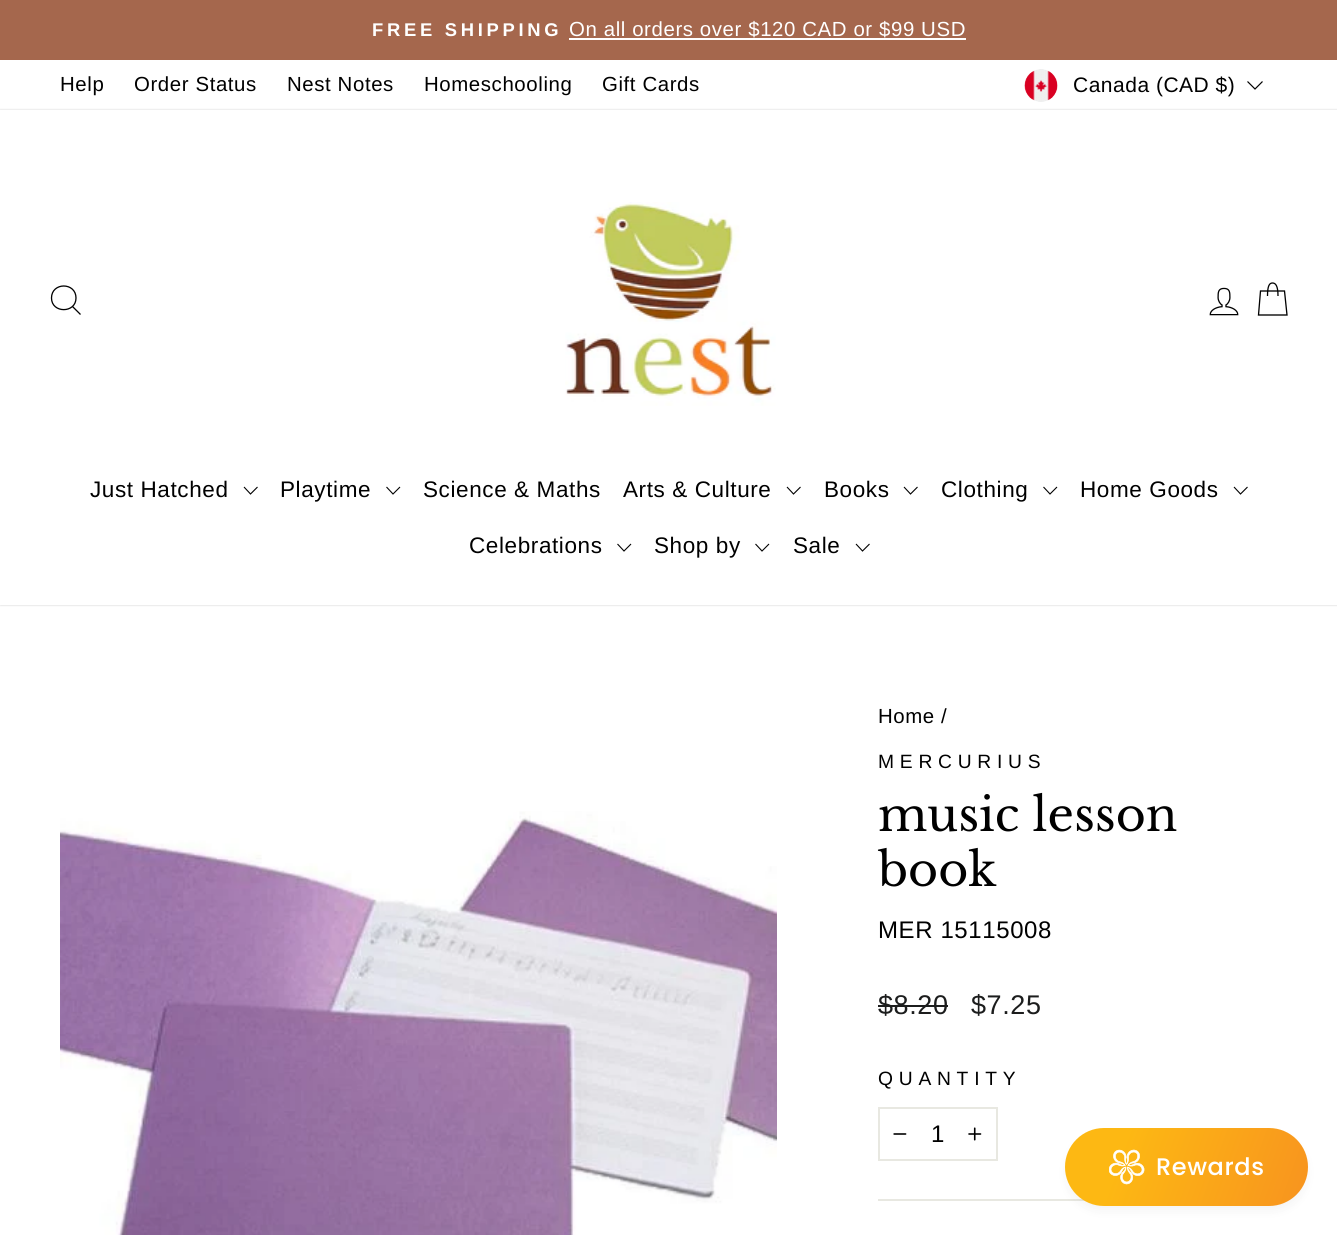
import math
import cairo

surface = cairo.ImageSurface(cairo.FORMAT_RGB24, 1337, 1235)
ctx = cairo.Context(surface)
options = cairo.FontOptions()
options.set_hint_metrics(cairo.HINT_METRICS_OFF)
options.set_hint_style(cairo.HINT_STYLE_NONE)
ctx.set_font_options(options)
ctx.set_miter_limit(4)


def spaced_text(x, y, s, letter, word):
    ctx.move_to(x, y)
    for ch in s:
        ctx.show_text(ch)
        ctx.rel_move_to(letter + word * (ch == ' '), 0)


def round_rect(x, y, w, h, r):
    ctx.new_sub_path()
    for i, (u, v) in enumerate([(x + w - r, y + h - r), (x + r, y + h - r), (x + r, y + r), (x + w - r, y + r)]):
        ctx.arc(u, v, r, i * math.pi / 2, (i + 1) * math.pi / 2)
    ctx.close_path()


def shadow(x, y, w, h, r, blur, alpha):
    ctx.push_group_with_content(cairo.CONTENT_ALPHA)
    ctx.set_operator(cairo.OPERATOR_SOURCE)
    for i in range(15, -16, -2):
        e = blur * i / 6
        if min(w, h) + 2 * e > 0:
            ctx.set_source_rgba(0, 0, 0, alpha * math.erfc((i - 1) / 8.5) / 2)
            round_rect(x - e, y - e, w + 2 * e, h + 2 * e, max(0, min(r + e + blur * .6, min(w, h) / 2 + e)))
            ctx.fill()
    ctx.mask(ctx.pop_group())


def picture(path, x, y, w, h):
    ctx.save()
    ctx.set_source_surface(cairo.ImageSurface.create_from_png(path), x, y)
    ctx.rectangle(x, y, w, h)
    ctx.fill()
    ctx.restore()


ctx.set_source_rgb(1, 1, 1)
ctx.paint()
ctx.set_source_rgb(0.647, 0.404, 0.302)
ctx.rectangle(0, 0, 1337, 60)
ctx.fill()
ctx.select_font_face("Liberation Sans", cairo.FONT_SLANT_NORMAL, cairo.FONT_WEIGHT_BOLD)
ctx.set_font_size(18.4)
ctx.set_source_rgb(1, 1, 1)
spaced_text(372, 36, "FREE SHIPPING", 3.7, 0)
ctx.select_font_face("Liberation Sans")
ctx.set_font_size(20.4)
spaced_text(569, 36, "On all orders over $120 CAD or $99 USD", 0.6, 0)
ctx.rectangle(569, 38, 397, 2)
ctx.fill()
ctx.set_source_rgb(0, 0, 0)
spaced_text(60, 91, "Help", 0.6, 0)
spaced_text(134, 91, "Order Status", 0.6, 0)
spaced_text(287, 91, "Nest Notes", 0.6, 0)
spaced_text(424, 91, "Homeschooling", 0.6, 0)
spaced_text(602, 91, "Gift Cards", 0.6, 0)
picture("img1.png", 1024, 69, 34, 33)
ctx.set_font_size(21)
spaced_text(1073, 92, "Canada (CAD $)", 0.5, 0)
ctx.new_path()
ctx.move_to(1247.5, 81.5)
ctx.line_to(1255, 89)
ctx.line_to(1262.5, 81.5)
ctx.set_line_width(1.2)
ctx.stroke()
ctx.set_source_rgb(0, 0, 0)
shadow(0, 110, 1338, 495, 0, 1, 0.2)
ctx.set_source_rgb(1, 1, 1)
ctx.rectangle(0, 110, 1337, 495)
ctx.fill()
ctx.new_path()
ctx.move_to(76, 298)
ctx.curve_to(76, 313.5, 51.5, 313.5, 51.5, 298)
ctx.curve_to(51.5, 282, 76, 282, 76, 298)
ctx.close_path()
ctx.move_to(80.5, 314.5)
ctx.line_to(72.5, 306.5)
ctx.set_source_rgb(0, 0, 0)
ctx.set_line_width(1.3)
ctx.stroke()
picture("img2.png", 565, 202, 211, 204)
picture("img3.png", 1209, 287, 30, 29)
ctx.new_path()
ctx.move_to(1267.5, 296)
ctx.curve_to(1267.5, 285.5, 1269.5, 283, 1272.5, 283)
ctx.curve_to(1275.5, 283, 1278, 285.5, 1278, 296)
ctx.move_to(1260.5, 291)
ctx.line_to(1284.5, 291)
ctx.line_to(1287, 315)
ctx.line_to(1258.5, 315)
ctx.close_path()
ctx.stroke()
ctx.set_font_size(22.5)
spaced_text(90, 497, "Just Hatched", 0.6, 0)
ctx.new_path()
ctx.move_to(244, 487)
ctx.line_to(250.5, 494)
ctx.line_to(257.5, 487)
ctx.set_line_width(1.1)
ctx.stroke()
spaced_text(280, 497, "Playtime", 0.6, 0)
ctx.new_path()
ctx.move_to(386.5, 487)
ctx.line_to(393, 494)
ctx.line_to(400, 487)
ctx.stroke()
spaced_text(423, 497, "Science & Maths", 0.6, 0)
spaced_text(623, 497, "Arts & Culture", 0.6, 0)
ctx.new_path()
ctx.move_to(787, 487)
ctx.line_to(793.5, 494)
ctx.line_to(800.5, 487)
ctx.stroke()
spaced_text(824, 497, "Books", 0.6, 0)
ctx.new_path()
ctx.move_to(904, 487)
ctx.line_to(910.5, 494)
ctx.line_to(917.5, 487)
ctx.stroke()
spaced_text(941, 497, "Clothing", 0.6, 0)
ctx.new_path()
ctx.move_to(1043.5, 487)
ctx.line_to(1050, 494)
ctx.line_to(1057, 487)
ctx.stroke()
spaced_text(1080, 497, "Home Goods", 0.6, 0)
ctx.new_path()
ctx.move_to(1234, 487)
ctx.line_to(1240.5, 494)
ctx.line_to(1247.5, 487)
ctx.stroke()
spaced_text(469, 553, "Celebrations", 0.6, 0)
ctx.new_path()
ctx.move_to(617.5, 544)
ctx.line_to(624, 551)
ctx.line_to(631, 544)
ctx.stroke()
spaced_text(654, 553, "Shop by", 0.6, 0)
ctx.new_path()
ctx.move_to(755.5, 544)
ctx.line_to(762, 551)
ctx.line_to(769, 544)
ctx.stroke()
spaced_text(793, 553, "Sale", 0.6, 0)
ctx.new_path()
ctx.move_to(856, 544)
ctx.line_to(862.5, 551)
ctx.line_to(869.5, 544)
ctx.stroke()
picture("img4.png", 60, 811, 717, 424)
ctx.set_font_size(20.4)
spaced_text(878, 723, "Home /", 0.6, 0)
ctx.set_font_size(19.25)
spaced_text(878, 768, "MERCURIUS", 5.75, 0)
ctx.select_font_face("Libre Baskerville")
ctx.set_font_size(46)
ctx.move_to(878, 831)
ctx.show_text("music lesson")
ctx.move_to(878, 886)
ctx.show_text("book")
ctx.select_font_face("Liberation Sans")
ctx.set_font_size(24)
spaced_text(878, 938, "MER 15115008", 0.6, 0)
ctx.set_font_size(27)
ctx.set_source_rgb(0.11, 0.114, 0.114)
spaced_text(878, 1014, "$8.20", 0.6, 0)
ctx.rectangle(878, 1005, 70, 2)
ctx.fill()
spaced_text(971, 1014, "$7.25", 0.6, 0)
ctx.set_font_size(19.25)
ctx.set_source_rgb(0, 0, 0)
spaced_text(878, 1085, "QUANTITY", 5.75, 0)
ctx.rectangle(879, 1108, 118, 52)
ctx.set_source_rgb(0.91, 0.91, 0.882)
ctx.set_line_width(2)
ctx.stroke()
picture("img5.png", 893, 1133, 14, 2)
ctx.set_font_size(24)
ctx.set_source_rgb(0, 0, 0)
spaced_text(931, 1142, "1", 0.6, 0)
picture("img6.png", 968, 1127, 14, 14)
ctx.set_source_rgb(0.91, 0.91, 0.882)
ctx.rectangle(878, 1199, 207, 2)
ctx.fill()
ctx.set_source_rgb(0.267, 0.267, 0.267)
shadow(1068, 1137, 237, 72, 36, 6, 0.08)
gradient = cairo.LinearGradient(1066, 1124, 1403, 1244)
gradient.add_color_stop_rgba(0.17, 0.992, 0.722, 0.075, 1)
gradient.add_color_stop_rgba(1, 0.961, 0.502, 0.145, 1)
ctx.set_source(gradient)
round_rect(1065, 1128, 243, 78, 39)
ctx.fill()
picture("img7.png", 1109, 1149, 36, 36)
ctx.select_font_face("Poppins Medium")
ctx.set_source_rgb(1, 1, 1)
spaced_text(1156, 1175, "Rewards", 0.6, 0)
surface.write_to_png("page.png")
